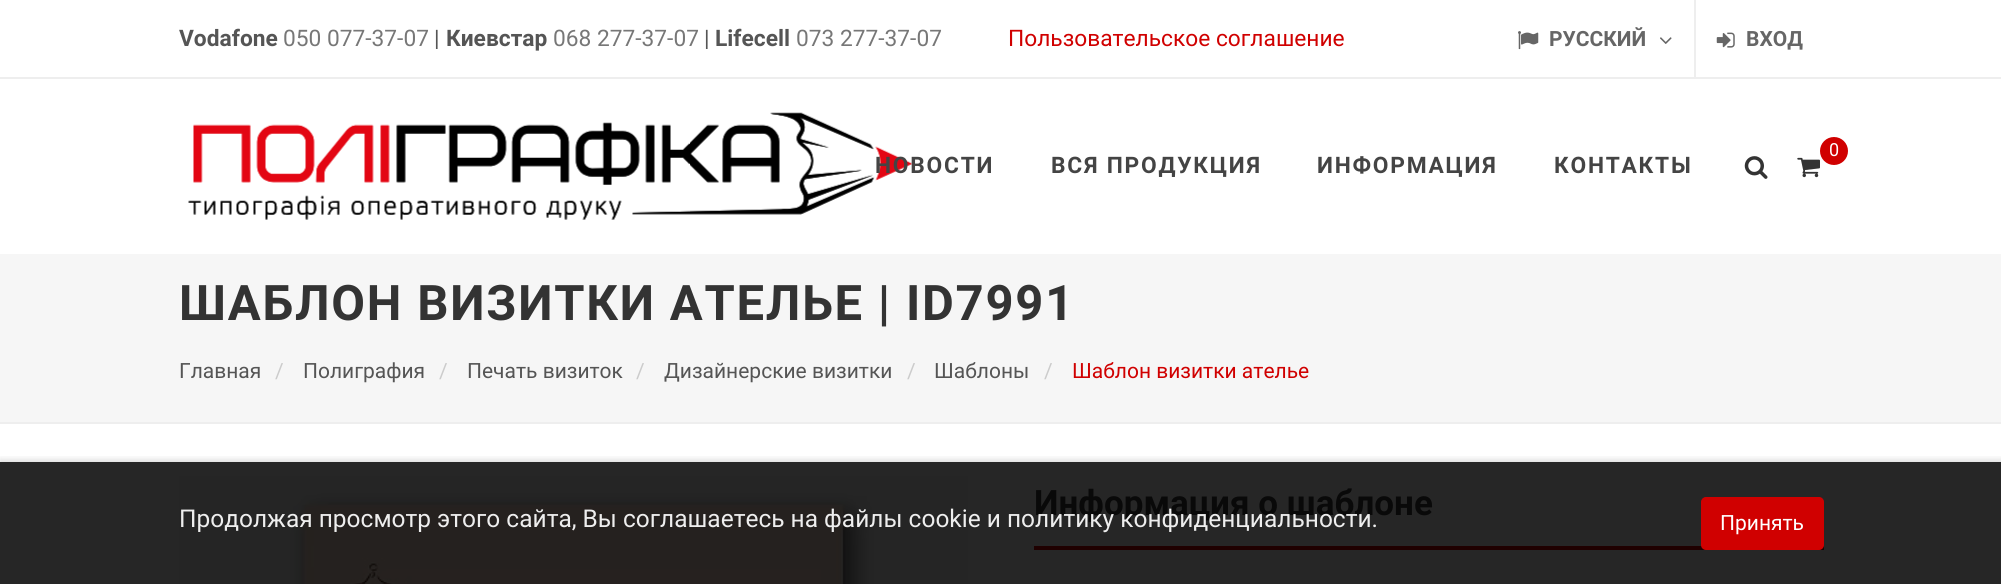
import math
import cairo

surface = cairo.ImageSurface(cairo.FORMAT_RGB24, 2001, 584)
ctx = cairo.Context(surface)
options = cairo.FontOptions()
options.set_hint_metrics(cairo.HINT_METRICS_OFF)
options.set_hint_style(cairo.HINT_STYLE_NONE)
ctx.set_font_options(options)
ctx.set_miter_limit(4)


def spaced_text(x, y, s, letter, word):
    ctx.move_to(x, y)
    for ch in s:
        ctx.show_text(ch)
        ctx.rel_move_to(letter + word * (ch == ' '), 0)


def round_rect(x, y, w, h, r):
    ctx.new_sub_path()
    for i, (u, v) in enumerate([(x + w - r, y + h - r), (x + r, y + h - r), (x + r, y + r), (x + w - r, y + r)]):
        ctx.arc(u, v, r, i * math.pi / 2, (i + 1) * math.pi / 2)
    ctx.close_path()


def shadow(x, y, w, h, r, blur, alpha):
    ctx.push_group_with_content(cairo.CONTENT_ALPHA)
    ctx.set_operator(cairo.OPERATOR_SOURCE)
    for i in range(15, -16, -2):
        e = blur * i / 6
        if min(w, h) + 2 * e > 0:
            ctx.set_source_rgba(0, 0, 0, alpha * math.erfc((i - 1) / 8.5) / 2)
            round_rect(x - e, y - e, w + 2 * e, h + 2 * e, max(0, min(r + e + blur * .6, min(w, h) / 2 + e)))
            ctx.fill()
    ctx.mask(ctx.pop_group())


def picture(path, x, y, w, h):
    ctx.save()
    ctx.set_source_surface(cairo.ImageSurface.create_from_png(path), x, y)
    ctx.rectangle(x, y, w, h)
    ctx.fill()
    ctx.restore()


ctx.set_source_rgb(1, 1, 1)
ctx.paint()
ctx.set_source_rgb(0.149, 0.149, 0.149)
ctx.rectangle(0, 462, 2001, 122)
ctx.fill()
ctx.set_source_rgb(0.933, 0.933, 0.933)
ctx.rectangle(0, 77, 2001, 2)
ctx.fill()
ctx.select_font_face("Roboto", cairo.FONT_SLANT_NORMAL, cairo.FONT_WEIGHT_BOLD)
ctx.set_font_size(22.75)
ctx.set_source_rgb(0.333, 0.333, 0.333)
ctx.move_to(179, 46)
ctx.show_text("Vodafone")
ctx.select_font_face("Roboto")
ctx.set_source_rgb(0.467, 0.467, 0.467)
ctx.move_to(283, 46)
ctx.show_text("050 077-37-07")
ctx.set_source_rgb(0.333, 0.333, 0.333)
ctx.move_to(434, 46)
ctx.show_text("|")
ctx.select_font_face("Roboto", cairo.FONT_SLANT_NORMAL, cairo.FONT_WEIGHT_BOLD)
ctx.move_to(446, 46)
ctx.show_text("Киевстар")
ctx.select_font_face("Roboto")
ctx.set_source_rgb(0.467, 0.467, 0.467)
ctx.move_to(553, 46)
ctx.show_text("068 277-37-07")
ctx.set_source_rgb(0.333, 0.333, 0.333)
ctx.move_to(704, 46)
ctx.show_text("|")
ctx.select_font_face("Roboto", cairo.FONT_SLANT_NORMAL, cairo.FONT_WEIGHT_BOLD)
ctx.move_to(715, 46)
ctx.show_text("Lifecell")
ctx.select_font_face("Roboto")
ctx.set_source_rgb(0.467, 0.467, 0.467)
ctx.move_to(796, 46)
ctx.show_text("073 277-37-07")
ctx.set_source_rgb(0.816, 0, 0)
ctx.move_to(1008, 46)
ctx.show_text("Пользовательское соглашение")
picture("img1.png", 1518, 31, 21, 19)
ctx.select_font_face("Roboto", cairo.FONT_SLANT_NORMAL, cairo.FONT_WEIGHT_BOLD)
ctx.set_font_size(21)
ctx.set_source_rgb(0.4, 0.4, 0.4)
ctx.move_to(1549, 46)
ctx.show_text("РУССКИЙ")
picture("img2.png", 1660, 37, 12, 7)
ctx.set_source_rgb(0.933, 0.933, 0.933)
ctx.rectangle(1694, 0, 2, 77)
ctx.fill()
picture("img3.png", 1716, 32, 19, 16)
ctx.set_source_rgb(0.4, 0.4, 0.4)
ctx.move_to(1746, 46)
ctx.show_text("ВХОД")
picture("img4.png", 188, 112, 725, 108)
ctx.set_source_rgb(0.816, 0, 0)
ctx.arc(1834, 151, 14, 0, 2 * math.pi)
ctx.fill()
ctx.select_font_face("Roboto")
ctx.set_font_size(18)
ctx.set_source_rgb(1, 1, 1)
ctx.move_to(1829, 156)
ctx.show_text("0")
picture("img5.png", 1797, 157, 23, 21)
ctx.select_font_face("Roboto", cairo.FONT_SLANT_NORMAL, cairo.FONT_WEIGHT_BOLD)
ctx.set_font_size(22.75)
ctx.set_source_rgb(0.267, 0.267, 0.267)
spaced_text(875, 173, "НОВОСТИ", 1.75, 0)
spaced_text(1051, 173, "ВСЯ ПРОДУКЦИЯ", 1.75, 0)
spaced_text(1317, 173, "ИНФОРМАЦИЯ", 1.75, 0)
spaced_text(1554, 173, "КОНТАКТЫ", 1.75, 0)
picture("img6.png", 1744, 156, 24, 23)
ctx.set_source_rgb(0.961, 0.961, 0.961)
ctx.rectangle(0, 254, 2001, 168)
ctx.fill()
ctx.set_source_rgb(0.933, 0.933, 0.933)
ctx.rectangle(0, 422, 2001, 2)
ctx.fill()
ctx.set_font_size(49)
ctx.set_source_rgb(0.2, 0.2, 0.2)
spaced_text(179, 320, "ШАБЛОН ВИЗИТКИ АТЕЛЬЕ | ID7991", 1.75, 0)
ctx.select_font_face("Roboto")
ctx.set_font_size(21)
ctx.set_source_rgb(0.333, 0.333, 0.333)
ctx.move_to(179, 378)
ctx.show_text("Главная")
ctx.set_source_rgb(0.8, 0.8, 0.8)
ctx.move_to(275, 378)
ctx.show_text("/")
ctx.set_source_rgb(0.333, 0.333, 0.333)
ctx.move_to(303, 378)
ctx.show_text("Полиграфия")
ctx.set_source_rgb(0.8, 0.8, 0.8)
ctx.move_to(439, 378)
ctx.show_text("/")
ctx.set_source_rgb(0.333, 0.333, 0.333)
ctx.move_to(467, 378)
ctx.show_text("Печать визиток")
ctx.set_source_rgb(0.8, 0.8, 0.8)
ctx.move_to(636, 378)
ctx.show_text("/")
ctx.set_source_rgb(0.333, 0.333, 0.333)
ctx.move_to(664, 378)
ctx.show_text("Дизайнерские визитки")
ctx.set_source_rgb(0.8, 0.8, 0.8)
ctx.move_to(907, 378)
ctx.show_text("/")
ctx.set_source_rgb(0.333, 0.333, 0.333)
ctx.move_to(934, 378)
ctx.show_text("Шаблоны")
ctx.set_source_rgb(0.8, 0.8, 0.8)
ctx.move_to(1044, 378)
ctx.show_text("/")
ctx.set_source_rgb(0.816, 0, 0)
ctx.move_to(1072, 378)
ctx.show_text("Шаблон визитки ателье")
picture("img7.png", 178, 476, 790, 108)
ctx.set_source_rgb(0.122, 0, 0)
ctx.rectangle(1034, 546, 790, 4)
ctx.fill()
ctx.select_font_face("Roboto", cairo.FONT_SLANT_NORMAL, cairo.FONT_WEIGHT_BOLD)
ctx.set_font_size(35)
ctx.set_source_rgb(0.039, 0.039, 0.039)
ctx.move_to(1034, 515)
ctx.show_text("Информация о шаблоне")
ctx.save()
ctx.rectangle(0, 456, 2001, 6)
ctx.clip()
ctx.set_source_rgb(0, 0, 0)
shadow(0, 460, 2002, 123, 0, 3.5, 0.15)
ctx.restore()
ctx.select_font_face("Roboto")
ctx.set_font_size(24.5)
ctx.set_source_rgb(0.933, 0.933, 0.933)
ctx.move_to(179, 527)
ctx.show_text("Продолжая просмотр этого сайта, Вы соглашаетесь на файлы cookie и политику конфиденциальности.")
ctx.set_source_rgb(0.816, 0, 0)
round_rect(1702, 498, 121, 51, 4)
ctx.fill_preserve()
ctx.stroke()
ctx.set_font_size(21)
ctx.set_source_rgb(1, 1, 1)
ctx.move_to(1720, 530)
ctx.show_text("Принять")
surface.write_to_png("page.png")
